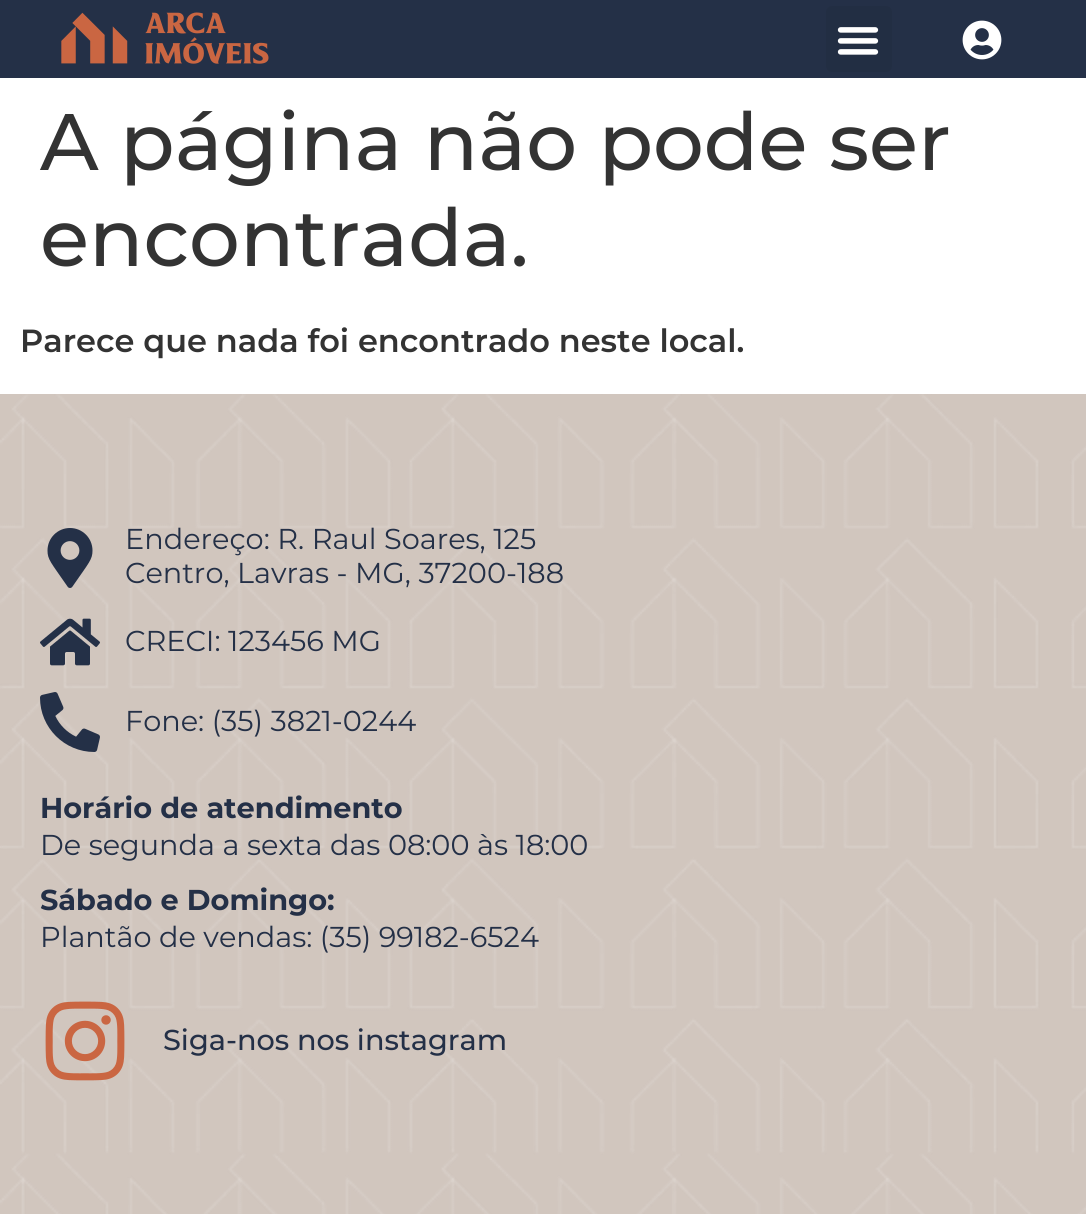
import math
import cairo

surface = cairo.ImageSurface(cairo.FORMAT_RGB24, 1086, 1219)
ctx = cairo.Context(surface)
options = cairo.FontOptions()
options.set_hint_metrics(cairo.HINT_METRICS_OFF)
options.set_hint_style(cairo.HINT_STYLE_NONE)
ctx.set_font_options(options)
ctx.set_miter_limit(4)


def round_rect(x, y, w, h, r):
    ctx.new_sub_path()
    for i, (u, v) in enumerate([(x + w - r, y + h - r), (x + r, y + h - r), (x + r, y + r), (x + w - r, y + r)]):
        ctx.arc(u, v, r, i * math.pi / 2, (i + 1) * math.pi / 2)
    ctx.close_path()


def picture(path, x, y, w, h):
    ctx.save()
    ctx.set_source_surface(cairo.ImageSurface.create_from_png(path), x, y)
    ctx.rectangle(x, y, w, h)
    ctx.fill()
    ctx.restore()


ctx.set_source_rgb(1, 1, 1)
ctx.paint()
ctx.set_source_rgb(0.141, 0.188, 0.278)
ctx.rectangle(0, 0, 1086, 78)
ctx.fill()
picture("img1.png", 61, 12, 208, 52)
ctx.set_source_rgb(0.133, 0.18, 0.263)
round_rect(826, 6, 66, 66, 6)
ctx.fill()
picture("img2.png", 837, 27, 42, 28)
picture("img3.png", 962, 20, 40, 40)
ctx.select_font_face("Montserrat Medium")
ctx.set_font_size(80)
ctx.set_source_rgb(0.2, 0.2, 0.2)
ctx.move_to(40, 170)
ctx.show_text("A página não pode ser")
ctx.move_to(40, 266)
ctx.show_text("encontrada.")
ctx.select_font_face("Montserrat SemiBold")
ctx.set_font_size(32)
ctx.move_to(20, 352)
ctx.show_text("Parece que nada foi encontrado neste local.")
ctx.set_source_rgb(0.82, 0.776, 0.745)
ctx.rectangle(0, 394, 1086, 820)
ctx.fill()
picture("img4.png", 0, 394, 1086, 820)
picture("img5.png", 47, 528, 46, 60)
ctx.select_font_face("Montserrat")
ctx.set_font_size(28.75)
ctx.set_source_rgb(0.141, 0.188, 0.278)
ctx.move_to(125, 549)
ctx.show_text("Endereço: R. Raul Soares, 125")
ctx.move_to(125, 583)
ctx.show_text("Centro, Lavras - MG, 37200-188")
picture("img6.png", 40, 618, 60, 48)
ctx.move_to(125, 651)
ctx.show_text("CRECI: 123456 MG")
picture("img7.png", 40, 692, 60, 60)
ctx.move_to(125, 731)
ctx.show_text("Fone: (35) 3821-0244")
ctx.select_font_face("Montserrat", cairo.FONT_SLANT_NORMAL, cairo.FONT_WEIGHT_BOLD)
ctx.move_to(40, 818)
ctx.show_text("Horário de atendimento")
ctx.select_font_face("Montserrat")
ctx.move_to(40, 855)
ctx.show_text("De segunda a sexta das 08:00 às 18:00")
ctx.select_font_face("Montserrat", cairo.FONT_SLANT_NORMAL, cairo.FONT_WEIGHT_BOLD)
ctx.move_to(40, 910)
ctx.show_text("Sábado e Domingo:")
ctx.select_font_face("Montserrat")
ctx.move_to(40, 947)
ctx.show_text("Plantão de vendas: (35) 99182-6524")
picture("img8.png", 45, 1001, 80, 80)
ctx.select_font_face("Montserrat Medium")
ctx.move_to(163, 1050)
ctx.show_text("Siga-nos nos instagram")
surface.write_to_png("page.png")
